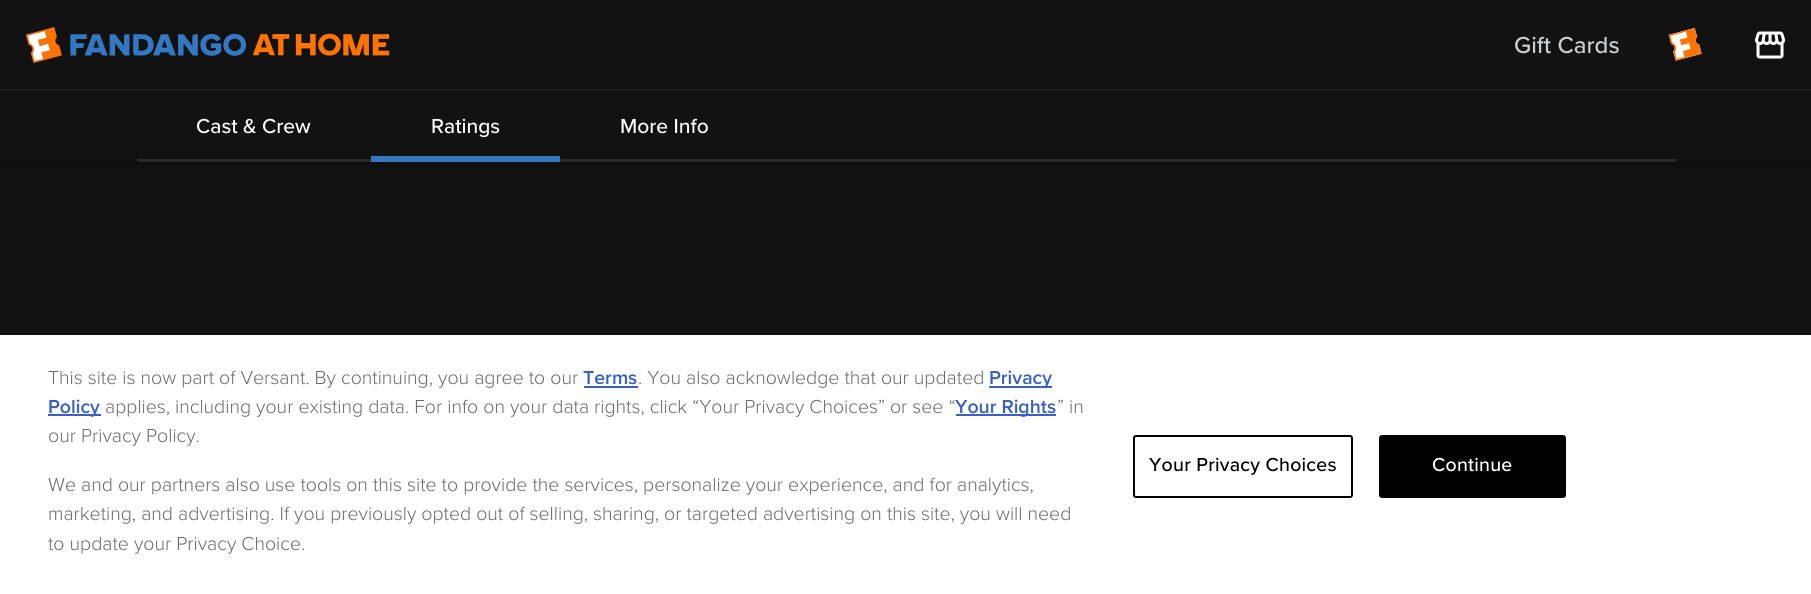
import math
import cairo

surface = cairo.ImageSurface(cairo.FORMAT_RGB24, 1811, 594)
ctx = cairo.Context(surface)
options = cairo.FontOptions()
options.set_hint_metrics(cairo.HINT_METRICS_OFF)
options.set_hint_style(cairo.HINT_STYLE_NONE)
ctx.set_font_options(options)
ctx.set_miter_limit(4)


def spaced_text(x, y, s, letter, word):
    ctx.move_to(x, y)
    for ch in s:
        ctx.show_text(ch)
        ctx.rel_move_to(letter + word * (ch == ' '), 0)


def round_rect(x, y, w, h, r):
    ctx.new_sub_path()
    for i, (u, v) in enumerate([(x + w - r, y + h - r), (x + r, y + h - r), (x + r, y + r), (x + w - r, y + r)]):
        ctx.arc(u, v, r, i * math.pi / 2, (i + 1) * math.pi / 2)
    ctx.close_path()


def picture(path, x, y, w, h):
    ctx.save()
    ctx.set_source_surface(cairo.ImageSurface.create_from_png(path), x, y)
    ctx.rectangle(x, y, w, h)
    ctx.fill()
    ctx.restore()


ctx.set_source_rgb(0.071, 0.071, 0.071)
ctx.paint()
ctx.set_source_rgb(0.118, 0.118, 0.118)
ctx.rectangle(0, 89, 1811, 2)
ctx.fill()
picture("img1.png", 26, 27, 364, 36)
ctx.select_font_face("Proxima Nova Medium")
ctx.set_font_size(24)
ctx.set_source_rgb(0.8, 0.812, 0.82)
ctx.move_to(1514, 53)
ctx.show_text("Gift Cards")
picture("img2.png", 1668, 27, 34, 34)
picture("img3.png", 1755, 31, 31, 28)
ctx.set_font_size(21)
ctx.set_source_rgb(1, 1, 1)
ctx.move_to(196, 133)
ctx.show_text("Cast & Crew")
ctx.set_source_rgb(0.165, 0.165, 0.165)
ctx.rectangle(137, 159, 1539, 3)
ctx.fill()
ctx.set_source_rgb(0.204, 0.471, 0.757)
ctx.rectangle(371, 156, 189, 6)
ctx.fill()
ctx.set_source_rgb(1, 1, 1)
ctx.move_to(431, 133)
ctx.show_text("Ratings")
ctx.move_to(620, 133)
ctx.show_text("More Info")
gradient = cairo.LinearGradient(906, 177, 906, 162)
gradient.add_color_stop_rgba(0, 0.071, 0.071, 0.071, 1)
gradient.add_color_stop_rgba(1, 0.055, 0.055, 0.055, 1)
ctx.set_source(gradient)
ctx.rectangle(0, 162, 1811, 6)
ctx.fill()
ctx.set_source_rgb(1, 1, 1)
ctx.rectangle(0, 335, 1811, 259)
ctx.fill()
ctx.select_font_face("Proxima Nova Light")
ctx.set_font_size(19.5)
ctx.set_source_rgb(0.412, 0.412, 0.412)
ctx.move_to(48, 384)
ctx.show_text("This site is now part of Versant. By continuing, you agree to our")
ctx.select_font_face("Proxima Nova SemiBold")
ctx.set_source_rgb(0.22, 0.376, 0.745)
ctx.move_to(583, 384)
ctx.show_text("Terms")
ctx.rectangle(584, 386, 54, 2)
ctx.fill()
ctx.select_font_face("Proxima Nova Light")
ctx.set_source_rgb(0.412, 0.412, 0.412)
ctx.move_to(638, 384)
ctx.show_text(". You also acknowledge that our updated")
ctx.set_source_rgb(0.22, 0.376, 0.745)
ctx.rectangle(989, 386, 63, 2)
ctx.fill()
ctx.select_font_face("Proxima Nova SemiBold")
ctx.move_to(989, 384)
ctx.show_text("Privacy")
ctx.rectangle(48, 414, 53, 2)
ctx.fill()
ctx.move_to(48, 413)
ctx.show_text("Policy")
ctx.select_font_face("Proxima Nova Light")
ctx.set_source_rgb(0.412, 0.412, 0.412)
ctx.move_to(105, 413)
ctx.show_text("applies, including your existing data. For info on your data rights, click “Your Privacy Choices” or see “")
ctx.set_source_rgb(0.22, 0.376, 0.745)
ctx.rectangle(956, 414, 100, 2)
ctx.fill()
ctx.select_font_face("Proxima Nova SemiBold")
ctx.move_to(955, 413)
ctx.show_text("Your Rights")
ctx.select_font_face("Proxima Nova Light")
ctx.set_source_rgb(0.412, 0.412, 0.412)
ctx.move_to(1057, 413)
ctx.show_text("” in")
ctx.move_to(48, 442)
ctx.show_text("our Privacy Policy.")
ctx.move_to(48, 491)
ctx.show_text("We and our partners also use tools on this site to provide the services, personalize your experience, and for analytics,")
ctx.move_to(48, 520)
ctx.show_text("marketing, and advertising. If you previously opted out of selling, sharing, or targeted advertising on this site, you will need")
ctx.move_to(48, 550)
ctx.show_text("to update your Privacy Choice.")
round_rect(1134, 436, 218, 61, 2)
ctx.set_source_rgb(0, 0, 0)
ctx.stroke()
ctx.select_font_face("Proxima Nova Medium")
spaced_text(1149, 471, "Your Privacy Choices", 0.25, 0)
round_rect(1380, 436, 185, 61, 2)
ctx.fill_preserve()
ctx.stroke()
ctx.set_source_rgb(1, 1, 1)
spaced_text(1432, 471, "Continue", 0.25, 0)
surface.write_to_png("page.png")
